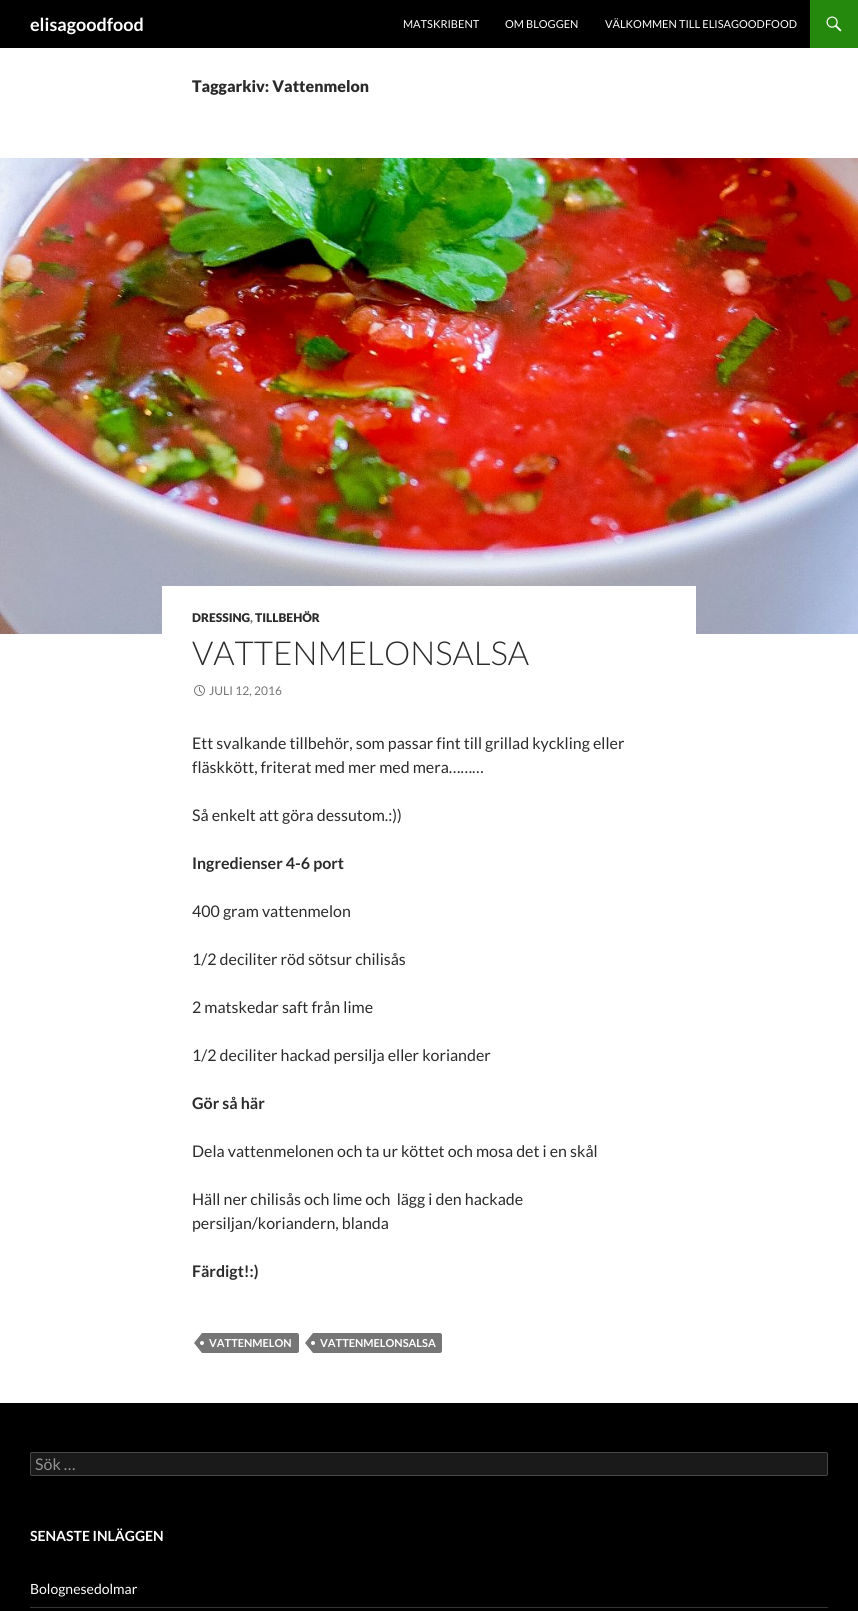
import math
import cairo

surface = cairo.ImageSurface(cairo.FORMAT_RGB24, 858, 1611)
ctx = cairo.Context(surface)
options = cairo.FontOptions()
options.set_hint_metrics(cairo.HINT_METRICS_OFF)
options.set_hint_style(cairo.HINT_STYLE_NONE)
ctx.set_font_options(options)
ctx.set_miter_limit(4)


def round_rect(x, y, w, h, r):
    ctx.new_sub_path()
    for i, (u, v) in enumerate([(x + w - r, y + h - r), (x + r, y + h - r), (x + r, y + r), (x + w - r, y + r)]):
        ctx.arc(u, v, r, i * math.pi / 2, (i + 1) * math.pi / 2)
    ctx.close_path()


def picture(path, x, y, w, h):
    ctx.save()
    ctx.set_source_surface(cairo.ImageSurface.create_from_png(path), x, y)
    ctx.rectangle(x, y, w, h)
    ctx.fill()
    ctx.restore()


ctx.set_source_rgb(1, 1, 1)
ctx.paint()
ctx.set_source_rgb(0, 0, 0)
ctx.rectangle(0, 0, 810, 48)
ctx.fill()
ctx.select_font_face("Lato", cairo.FONT_SLANT_NORMAL, cairo.FONT_WEIGHT_BOLD)
ctx.set_font_size(18)
ctx.set_source_rgb(1, 1, 1)
ctx.move_to(30, 31)
ctx.show_text("elisagoodfood")
ctx.select_font_face("Lato")
ctx.set_font_size(11)
ctx.move_to(403, 28)
ctx.show_text("MATSKRIBENT")
ctx.move_to(505, 28)
ctx.show_text("OM BLOGGEN")
ctx.move_to(605, 28)
ctx.show_text("VÄLKOMMEN TILL ELISAGOODFOOD")
ctx.set_source_rgb(0.141, 0.537, 0.051)
ctx.rectangle(810, 0, 48, 48)
ctx.fill()
picture("img1.png", 826, 16, 16, 16)
ctx.select_font_face("Lato Black")
ctx.set_font_size(16)
ctx.set_source_rgb(0.169, 0.169, 0.169)
ctx.move_to(192, 92)
ctx.show_text("Taggarkiv: Vattenmelon")
picture("img2.png", 0, 158, 858, 476)
ctx.set_source_rgb(1, 1, 1)
ctx.rectangle(162, 586, 534, 48)
ctx.fill()
ctx.set_font_size(12)
ctx.set_source_rgb(0.169, 0.169, 0.169)
ctx.move_to(192, 622)
ctx.show_text("DRESSING")
ctx.set_source_rgb(0.463, 0.463, 0.463)
ctx.move_to(250, 622)
ctx.show_text(",")
ctx.set_source_rgb(0.169, 0.169, 0.169)
ctx.move_to(255, 622)
ctx.show_text("TILLBEHÖR")
ctx.select_font_face("Lato Light")
ctx.set_font_size(33)
ctx.move_to(192, 665)
ctx.show_text("VATTENMELONSALSA")
picture("img3.png", 194, 685, 11, 11)
ctx.select_font_face("Lato")
ctx.set_font_size(12)
ctx.set_source_rgb(0.463, 0.463, 0.463)
ctx.move_to(209, 695)
ctx.show_text("JULI 12, 2016")
ctx.set_font_size(16)
ctx.set_source_rgb(0.169, 0.169, 0.169)
ctx.move_to(192, 749)
ctx.show_text("Ett svalkande tillbehör, som passar fint till grillad kyckling eller")
ctx.move_to(192, 773)
ctx.show_text("fläskkött, friterat med mer med mera………")
ctx.move_to(192, 821)
ctx.show_text("Så enkelt att göra dessutom.:))")
ctx.select_font_face("Lato", cairo.FONT_SLANT_NORMAL, cairo.FONT_WEIGHT_BOLD)
ctx.move_to(192, 869)
ctx.show_text("Ingredienser 4-6 port")
ctx.select_font_face("Lato")
ctx.move_to(192, 917)
ctx.show_text("400 gram vattenmelon")
ctx.move_to(192, 965)
ctx.show_text("1/2 deciliter röd sötsur chilisås")
ctx.move_to(192, 1013)
ctx.show_text("2 matskedar saft från lime")
ctx.move_to(192, 1061)
ctx.show_text("1/2 deciliter hackad persilja eller koriander")
ctx.select_font_face("Lato", cairo.FONT_SLANT_NORMAL, cairo.FONT_WEIGHT_BOLD)
ctx.move_to(192, 1109)
ctx.show_text("Gör så här")
ctx.select_font_face("Lato")
ctx.move_to(192, 1157)
ctx.show_text("Dela vattenmelonen och ta ur köttet och mosa det i en skål")
ctx.move_to(192, 1205)
ctx.show_text("Häll ner chilisås och lime och  lägg i den hackade")
ctx.move_to(192, 1229)
ctx.show_text("persiljan/koriandern, blanda")
ctx.select_font_face("Lato", cairo.FONT_SLANT_NORMAL, cairo.FONT_WEIGHT_BOLD)
ctx.move_to(192, 1277)
ctx.show_text("Färdigt!:)")
ctx.set_source_rgb(0.463, 0.463, 0.463)
ctx.new_path()
ctx.move_to(202, 1333)
ctx.line_to(297, 1333)
ctx.curve_to(298, 1333, 299, 1334, 299, 1335)
ctx.line_to(299, 1351)
ctx.curve_to(299, 1352, 298, 1353, 297, 1353)
ctx.line_to(202, 1353)
ctx.close_path()
ctx.fill()
ctx.new_path()
ctx.move_to(202, 1333)
ctx.line_to(202, 1353)
ctx.line_to(194, 1343)
ctx.close_path()
ctx.fill()
ctx.set_font_size(11)
ctx.set_source_rgb(1, 1, 1)
ctx.move_to(209, 1347)
ctx.show_text("VATTENMELON")
ctx.new_path()
ctx.arc(202, 1343, 2, 0, 2 * math.pi)
ctx.fill()
ctx.set_source_rgb(0.463, 0.463, 0.463)
ctx.new_path()
ctx.move_to(313, 1333)
ctx.line_to(440, 1333)
ctx.curve_to(441, 1333, 442, 1334, 442, 1335)
ctx.line_to(442, 1351)
ctx.curve_to(442, 1352, 441, 1353, 440, 1353)
ctx.line_to(313, 1353)
ctx.close_path()
ctx.fill()
ctx.new_path()
ctx.move_to(313, 1333)
ctx.line_to(313, 1353)
ctx.line_to(305, 1343)
ctx.close_path()
ctx.fill()
ctx.set_source_rgb(1, 1, 1)
ctx.move_to(320, 1347)
ctx.show_text("VATTENMELONSALSA")
ctx.new_path()
ctx.arc(313, 1343, 2, 0, 2 * math.pi)
ctx.fill()
ctx.set_source_rgb(0, 0, 0)
ctx.rectangle(0, 1403, 858, 208)
ctx.fill()
ctx.set_source_rgb(0.102, 0.102, 0.102)
round_rect(30, 1452, 798, 24, 2)
ctx.fill()
round_rect(30.5, 1452.5, 797, 23, 1.5)
ctx.set_source_rgba(1, 1, 1, 0.2)
ctx.set_line_width(1)
ctx.stroke()
ctx.select_font_face("Lato")
ctx.set_font_size(16)
ctx.set_source_rgb(0.576, 0.576, 0.576)
ctx.move_to(35, 1470)
ctx.show_text("Sök …")
ctx.select_font_face("Lato", cairo.FONT_SLANT_NORMAL, cairo.FONT_WEIGHT_BOLD)
ctx.set_font_size(14)
ctx.set_source_rgb(1, 1, 1)
ctx.move_to(30, 1541)
ctx.show_text("SENASTE INLÄGGEN")
ctx.select_font_face("Lato")
ctx.move_to(30, 1594)
ctx.show_text("Bolognesedolmar")
ctx.set_source_rgb(0.2, 0.2, 0.2)
ctx.rectangle(30, 1607, 798, 1)
ctx.fill()
surface.write_to_png("page.png")
